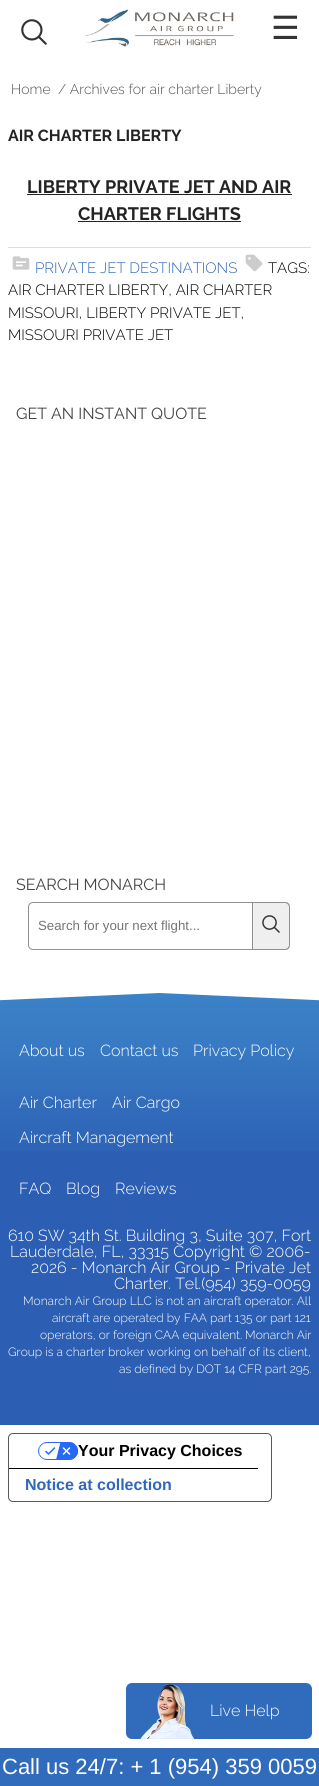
import math
import cairo

surface = cairo.ImageSurface(cairo.FORMAT_RGB24, 319, 1786)
ctx = cairo.Context(surface)
options = cairo.FontOptions()
options.set_hint_metrics(cairo.HINT_METRICS_OFF)
options.set_hint_style(cairo.HINT_STYLE_NONE)
ctx.set_font_options(options)
ctx.set_miter_limit(4)


def round_rect(x, y, w, h, r):
    ctx.new_sub_path()
    for i, (u, v) in enumerate([(x + w - r, y + h - r), (x + r, y + h - r), (x + r, y + r), (x + w - r, y + r)]):
        ctx.arc(u, v, r, i * math.pi / 2, (i + 1) * math.pi / 2)
    ctx.close_path()


def picture(path, x, y, w, h):
    ctx.save()
    ctx.set_source_surface(cairo.ImageSurface.create_from_png(path), x, y)
    ctx.rectangle(x, y, w, h)
    ctx.fill()
    ctx.restore()


ctx.set_source_rgb(1, 1, 1)
ctx.paint()
picture("img1.png", 84, 9, 150, 38)
picture("img2.png", 21, 19, 26, 26)
ctx.select_font_face("DejaVu Sans")
ctx.set_font_size(32)
ctx.set_source_rgb(0.2, 0.2, 0.2)
ctx.move_to(271, 39)
ctx.show_text("☰")
ctx.set_source_rgb(0.192, 0.42, 0.733)
round_rect(125, 1682, 188, 58, 7)
ctx.fill_preserve()
ctx.set_source_rgb(1, 1, 1)
ctx.stroke()
picture("img3.png", 140, 1684, 54, 55)
ctx.select_font_face("Raleway Light")
ctx.set_font_size(16)
ctx.move_to(210, 1716)
ctx.show_text("Live Help")
ctx.set_font_size(14)
ctx.set_source_rgb(0.318, 0.318, 0.318)
ctx.move_to(11, 94)
ctx.show_text("Home")
ctx.move_to(58, 94)
ctx.show_text("/ Archives for air charter Liberty")
ctx.select_font_face("Raleway", cairo.FONT_SLANT_NORMAL, cairo.FONT_WEIGHT_BOLD)
ctx.set_font_size(16)
ctx.set_source_rgb(0.137, 0.137, 0.137)
ctx.move_to(8, 141)
ctx.show_text("AIR CHARTER LIBERTY")
ctx.set_font_size(18)
ctx.move_to(27, 193)
ctx.show_text("LIBERTY PRIVATE JET AND AIR")
ctx.rectangle(27, 194, 265, 1)
ctx.fill()
ctx.move_to(78, 220)
ctx.show_text("CHARTER FLIGHTS")
ctx.rectangle(78, 221, 163, 1)
ctx.fill()
ctx.set_source_rgb(0.867, 0.867, 0.867)
ctx.rectangle(8, 247, 303, 1)
ctx.fill()
picture("img4.png", 12, 256, 18, 14)
ctx.select_font_face("Raleway Light")
ctx.set_font_size(15)
ctx.set_source_rgb(0.188, 0.408, 0.725)
ctx.move_to(35, 273)
ctx.show_text("PRIVATE JET DESTINATIONS")
picture("img5.png", 245, 254, 18, 18)
ctx.set_source_rgb(0, 0, 0)
ctx.move_to(268, 273)
ctx.show_text("TAGS:")
ctx.move_to(8, 295)
ctx.show_text("AIR CHARTER LIBERTY, AIR CHARTER")
ctx.move_to(8, 318)
ctx.show_text("MISSOURI, LIBERTY PRIVATE JET,")
ctx.move_to(8, 340)
ctx.show_text("MISSOURI PRIVATE JET")
ctx.select_font_face("Raleway")
ctx.set_font_size(16)
ctx.set_source_rgb(0.267, 0.267, 0.267)
ctx.move_to(16, 419)
ctx.show_text("GET AN INSTANT QUOTE")
ctx.move_to(16, 890)
ctx.show_text("SEARCH MONARCH")
ctx.new_path()
ctx.move_to(33, 902.5)
ctx.line_to(252.5, 902.5)
ctx.line_to(252.5, 949.5)
ctx.line_to(33, 949.5)
ctx.curve_to(30.5, 949.5, 28.5, 947.5, 28.5, 945)
ctx.line_to(28.5, 907)
ctx.curve_to(28.5, 904.5, 30.5, 902.5, 33, 902.5)
ctx.close_path()
ctx.set_source_rgb(0.565, 0.565, 0.565)
ctx.set_line_width(1)
ctx.stroke()
ctx.select_font_face("Liberation Sans")
ctx.set_font_size(13.25)
ctx.set_source_rgb(0.459, 0.459, 0.459)
ctx.move_to(38, 930)
ctx.show_text("Search for your next flight...")
ctx.set_source_rgb(0.937, 0.937, 0.937)
ctx.new_path()
ctx.move_to(253, 902)
ctx.line_to(285, 902)
ctx.curve_to(288, 902, 290, 904, 290, 907)
ctx.line_to(290, 945)
ctx.curve_to(290, 948, 288, 950, 285, 950)
ctx.line_to(253, 950)
ctx.close_path()
ctx.fill()
ctx.set_source_rgb(0.565, 0.565, 0.565)
ctx.set_fill_rule(cairo.FILL_RULE_EVEN_ODD)
ctx.new_path()
ctx.move_to(253, 902)
ctx.line_to(285, 902)
ctx.curve_to(288, 902, 290, 904, 290, 907)
ctx.line_to(290, 945)
ctx.curve_to(290, 948, 288, 950, 285, 950)
ctx.line_to(253, 950)
ctx.close_path()
ctx.move_to(253, 903)
ctx.line_to(285, 903)
ctx.curve_to(287, 903, 289, 905, 289, 907)
ctx.line_to(289, 945)
ctx.curve_to(289, 947, 287, 949, 285, 949)
ctx.line_to(253, 949)
ctx.close_path()
ctx.fill()
picture("img6.png", 262, 915, 18, 18)
ctx.set_source_rgb(0.173, 0.373, 0.706)
ctx.rectangle(0, 1151, 319, 274)
ctx.fill()
picture("img7.png", 0, 1013, 319, 138)
picture("img8.png", 0, 993, 319, 20)
ctx.select_font_face("Raleway Light")
ctx.set_font_size(16)
ctx.set_source_rgb(1, 1, 1)
ctx.move_to(19, 1056)
ctx.show_text("About us")
ctx.move_to(100, 1056)
ctx.show_text("Contact us")
ctx.move_to(193, 1056)
ctx.show_text("Privacy Policy")
ctx.move_to(19, 1108)
ctx.show_text("Air Charter")
ctx.move_to(112, 1108)
ctx.show_text("Air Cargo")
ctx.move_to(19, 1143)
ctx.show_text("Aircraft Management")
ctx.move_to(19, 1194)
ctx.show_text("FAQ")
ctx.move_to(66, 1194)
ctx.show_text("Blog")
ctx.move_to(115, 1194)
ctx.show_text("Reviews")
ctx.move_to(8, 1241)
ctx.show_text("610 SW 34th St. Building 3, Suite 307, Fort")
ctx.move_to(10, 1257)
ctx.show_text("Lauderdale, FL, 33315 Copyright © 2006-")
ctx.move_to(31, 1273)
ctx.show_text("2026 - Monarch Air Group - Private Jet")
ctx.move_to(114, 1289)
ctx.show_text("Charter. Tel.(954) 359-0059")
ctx.set_font_size(12)
ctx.move_to(23, 1305)
ctx.show_text("Monarch Air Group LLC is not an aircraft operator. All")
ctx.move_to(52, 1322)
ctx.show_text("aircraft are operated by FAA part 135 or part 121")
ctx.move_to(40, 1339)
ctx.show_text("operators, or foreign CAA equivalent. Monarch Air")
ctx.move_to(8, 1356)
ctx.show_text("Group is a charter broker working on behalf of its client,")
ctx.move_to(119, 1373)
ctx.show_text("as defined by DOT 14 CFR part 295.")
round_rect(8.5, 1433.5, 263, 68, 4.5)
ctx.set_source_rgb(0.349, 0.349, 0.349)
ctx.stroke()
ctx.set_source_rgb(0, 0, 0)
ctx.rectangle(9, 1468, 249, 1)
ctx.fill()
picture("img9.png", 38, 1442, 40, 18)
ctx.select_font_face("Liberation Sans", cairo.FONT_SLANT_NORMAL, cairo.FONT_WEIGHT_BOLD)
ctx.set_font_size(16)
ctx.move_to(78, 1456)
ctx.show_text("Your Privacy Choices")
ctx.set_source_rgb(0.188, 0.408, 0.725)
ctx.move_to(25, 1490)
ctx.show_text("Notice at collection")
ctx.set_source_rgb(0.192, 0.42, 0.733)
ctx.rectangle(0, 1748, 319, 38)
ctx.fill()
ctx.select_font_face("Liberation Sans")
ctx.set_font_size(22)
ctx.set_source_rgb(1, 1, 1)
ctx.move_to(2, 1774)
ctx.show_text("Call us 24/7: + 1 (954) 359 0059")
surface.write_to_png("page.png")
